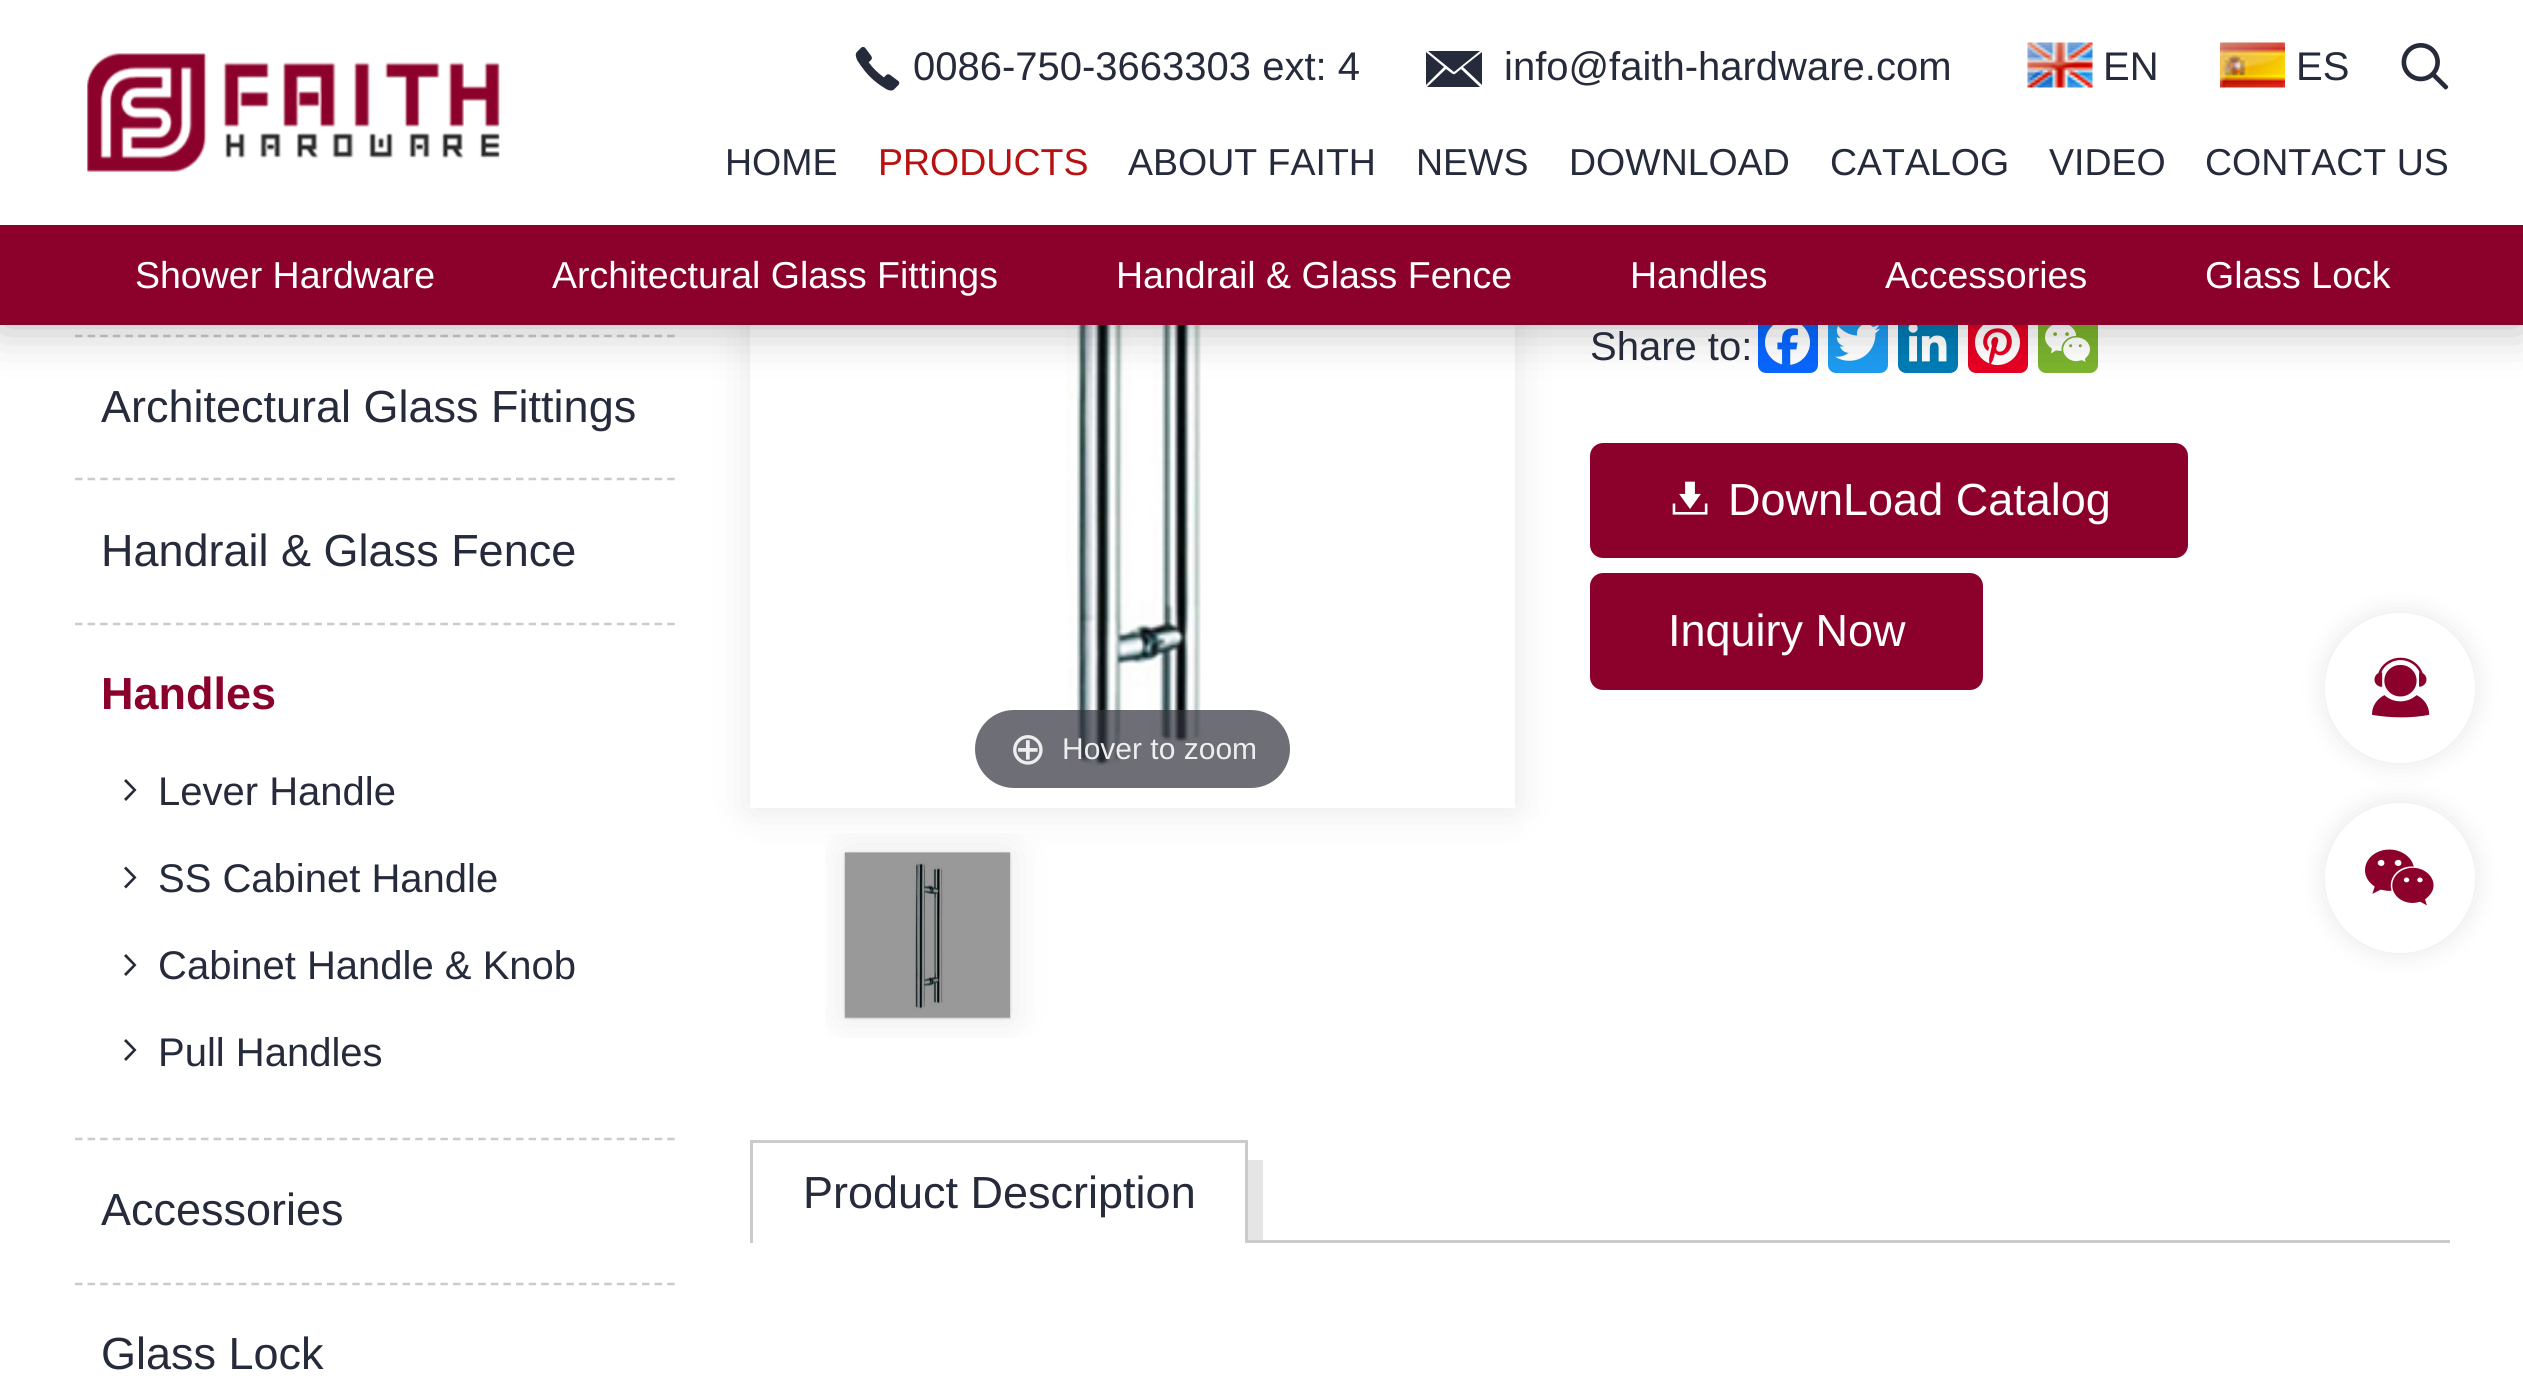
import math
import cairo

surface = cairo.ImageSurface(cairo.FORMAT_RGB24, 2523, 1390)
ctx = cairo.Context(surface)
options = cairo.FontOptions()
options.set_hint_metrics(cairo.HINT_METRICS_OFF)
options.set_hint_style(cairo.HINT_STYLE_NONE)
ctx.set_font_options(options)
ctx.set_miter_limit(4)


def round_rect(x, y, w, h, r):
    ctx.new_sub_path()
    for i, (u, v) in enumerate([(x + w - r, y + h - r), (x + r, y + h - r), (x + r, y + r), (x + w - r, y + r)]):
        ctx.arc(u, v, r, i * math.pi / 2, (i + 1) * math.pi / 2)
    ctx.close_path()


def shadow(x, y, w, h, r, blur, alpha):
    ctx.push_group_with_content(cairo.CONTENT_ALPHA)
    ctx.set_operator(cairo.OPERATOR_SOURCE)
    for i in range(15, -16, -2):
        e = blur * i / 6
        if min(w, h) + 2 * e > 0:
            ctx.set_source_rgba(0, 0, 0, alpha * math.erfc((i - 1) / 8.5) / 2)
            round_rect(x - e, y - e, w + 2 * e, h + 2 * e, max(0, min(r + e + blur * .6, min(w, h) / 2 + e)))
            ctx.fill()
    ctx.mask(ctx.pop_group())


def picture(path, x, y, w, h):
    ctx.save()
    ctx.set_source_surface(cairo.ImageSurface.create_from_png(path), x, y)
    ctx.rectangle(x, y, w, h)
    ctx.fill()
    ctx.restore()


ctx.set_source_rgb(1, 1, 1)
ctx.paint()
ctx.new_path()
ctx.move_to(75, 336)
ctx.line_to(675, 336)
ctx.set_source_rgb(0.796, 0.796, 0.796)
ctx.set_line_width(2.5)
ctx.set_dash([7.5, 5.1])
ctx.stroke()
ctx.set_source_rgb(0.031, 0.4, 1)
round_rect(1758, 313, 60, 60, 8)
ctx.fill()
picture("img6.png", 1765, 325, 45, 40)
ctx.set_source_rgb(0.114, 0.608, 0.941)
round_rect(1828, 313, 60, 60, 8)
ctx.fill()
picture("img7.png", 1835, 325, 45, 36)
ctx.set_source_rgb(0, 0.482, 0.71)
round_rect(1898, 313, 60, 60, 8)
ctx.fill()
picture("img8.png", 1908, 325, 39, 37)
ctx.set_source_rgb(0.902, 0, 0.137)
round_rect(1968, 313, 60, 60, 8)
ctx.fill()
picture("img9.png", 1975, 325, 45, 40)
ctx.set_source_rgb(0.482, 0.702, 0.18)
round_rect(2038, 313, 60, 60, 8)
ctx.fill()
picture("img10.png", 2045, 325, 45, 37)
ctx.save()
ctx.set_fill_rule(cairo.FILL_RULE_EVEN_ODD)
ctx.new_path()
ctx.move_to(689, 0)
ctx.line_to(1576, 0)
ctx.line_to(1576, 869)
ctx.line_to(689, 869)
ctx.close_path()
ctx.move_to(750, 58)
ctx.line_to(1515, 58)
ctx.line_to(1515, 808)
ctx.line_to(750, 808)
ctx.close_path()
ctx.clip()
ctx.set_source_rgb(0, 0, 0)
shadow(750, 58, 765, 750, 0, 20, 0.1)
ctx.restore()
picture("img12.png", 1066, 325, 135, 444)
ctx.set_source_rgb(0, 0, 0)
shadow(0, 0, 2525, 325, 0, 25, 0.3)
ctx.set_source_rgb(1, 1, 1)
ctx.rectangle(0, 0, 2523, 225)
ctx.fill()
picture("img1.png", 87, 53, 413, 119)
picture("img2.png", 855, 46, 45, 45)
ctx.select_font_face("Liberation Sans")
ctx.set_font_size(40)
ctx.set_source_rgb(0.145, 0.169, 0.227)
ctx.move_to(913, 80)
ctx.show_text("0086-750-3663303 ext: 4")
ctx.new_path()
ctx.move_to(1454, 72)
ctx.line_to(1428, 51)
ctx.line_to(1480, 51)
ctx.close_path()
ctx.move_to(1482, 85)
ctx.line_to(1463, 67)
ctx.line_to(1482, 52)
ctx.close_path()
ctx.move_to(1426, 85)
ctx.line_to(1426, 52)
ctx.line_to(1444, 67)
ctx.close_path()
ctx.move_to(1480, 87)
ctx.line_to(1427, 87)
ctx.line_to(1446, 69)
ctx.curve_to(1456, 76, 1452, 76, 1461, 69)
ctx.close_path()
ctx.fill()
ctx.move_to(1504, 80)
ctx.show_text("info@faith-hardware.com")
picture("img3.png", 2027, 42, 66, 46)
ctx.move_to(2103, 80)
ctx.show_text("EN")
picture("img4.png", 2220, 42, 65, 46)
ctx.move_to(2296, 80)
ctx.show_text("ES")
picture("img5.png", 2401, 43, 48, 47)
ctx.set_font_size(37.5)
ctx.move_to(725, 175)
ctx.show_text("HOME")
ctx.set_source_rgb(0.722, 0.067, 0.067)
ctx.move_to(878, 175)
ctx.show_text("PRODUCTS")
ctx.set_source_rgb(0.145, 0.169, 0.227)
ctx.move_to(1128, 175)
ctx.show_text("ABOUT FAITH")
ctx.move_to(1416, 175)
ctx.show_text("NEWS")
ctx.move_to(1569, 175)
ctx.show_text("DOWNLOAD")
ctx.move_to(1830, 175)
ctx.show_text("CATALOG")
ctx.move_to(2049, 175)
ctx.show_text("VIDEO")
ctx.move_to(2205, 175)
ctx.show_text("CONTACT US")
ctx.set_source_rgb(0.549, 0.004, 0.169)
ctx.rectangle(0, 225, 2523, 100)
ctx.fill()
ctx.set_source_rgb(1, 1, 1)
ctx.move_to(135, 288)
ctx.show_text("Shower Hardware")
ctx.move_to(552, 288)
ctx.show_text("Architectural Glass Fittings")
ctx.move_to(1116, 288)
ctx.show_text("Handrail & Glass Fence")
ctx.move_to(1630, 288)
ctx.show_text("Handles")
ctx.move_to(1885, 288)
ctx.show_text("Accessories")
ctx.move_to(2205, 288)
ctx.show_text("Glass Lock")
ctx.new_path()
ctx.move_to(75, 479)
ctx.line_to(675, 479)
ctx.set_source_rgb(0.796, 0.796, 0.796)
ctx.stroke()
ctx.set_font_size(45)
ctx.set_source_rgb(0.145, 0.169, 0.227)
ctx.move_to(101, 422)
ctx.show_text("Architectural Glass Fittings")
ctx.new_path()
ctx.move_to(75, 624)
ctx.line_to(675, 624)
ctx.set_source_rgb(0.796, 0.796, 0.796)
ctx.stroke()
ctx.set_source_rgb(0.145, 0.169, 0.227)
ctx.move_to(101, 566)
ctx.show_text("Handrail & Glass Fence")
ctx.new_path()
ctx.move_to(75, 1139)
ctx.line_to(675, 1139)
ctx.set_source_rgb(0.796, 0.796, 0.796)
ctx.stroke()
ctx.select_font_face("Liberation Sans", cairo.FONT_SLANT_NORMAL, cairo.FONT_WEIGHT_BOLD)
ctx.set_source_rgb(0.549, 0.004, 0.169)
ctx.move_to(101, 709)
ctx.show_text("Handles")
ctx.set_source_rgb(0.145, 0.169, 0.227)
ctx.new_path()
ctx.move_to(133, 790)
ctx.line_to(124, 781)
ctx.line_to(126, 779)
ctx.line_to(136.5, 790)
ctx.line_to(126, 801)
ctx.line_to(124, 799)
ctx.close_path()
ctx.fill()
ctx.select_font_face("Liberation Sans")
ctx.set_font_size(40)
ctx.move_to(158, 805)
ctx.show_text("Lever Handle")
ctx.new_path()
ctx.move_to(133, 877.5)
ctx.line_to(124, 868.5)
ctx.line_to(126, 866.5)
ctx.line_to(136.5, 877.5)
ctx.line_to(126, 888.5)
ctx.line_to(124, 886.5)
ctx.close_path()
ctx.fill()
ctx.move_to(158, 892)
ctx.show_text("SS Cabinet Handle")
ctx.new_path()
ctx.move_to(133, 965)
ctx.line_to(124, 956)
ctx.line_to(126, 954)
ctx.line_to(136.5, 965)
ctx.line_to(126, 976)
ctx.line_to(124, 974)
ctx.close_path()
ctx.fill()
ctx.move_to(158, 979)
ctx.show_text("Cabinet Handle & Knob")
ctx.new_path()
ctx.move_to(133, 1050)
ctx.line_to(124, 1041)
ctx.line_to(126, 1039)
ctx.line_to(136.5, 1050)
ctx.line_to(126, 1061)
ctx.line_to(124, 1059)
ctx.close_path()
ctx.fill()
ctx.move_to(158, 1066)
ctx.show_text("Pull Handles")
ctx.new_path()
ctx.move_to(75, 1284)
ctx.line_to(675, 1284)
ctx.set_source_rgb(0.796, 0.796, 0.796)
ctx.stroke()
ctx.set_font_size(45)
ctx.set_source_rgb(0.145, 0.169, 0.227)
ctx.move_to(101, 1225)
ctx.show_text("Accessories")
ctx.move_to(101, 1369)
ctx.show_text("Glass Lock")
ctx.set_font_size(40)
ctx.move_to(1590, 360)
ctx.show_text("Share to:")
ctx.set_source_rgb(0.549, 0.004, 0.169)
round_rect(1591.5, 444.5, 595, 112, 11.5)
ctx.fill_preserve()
ctx.set_line_width(3)
ctx.set_dash([])
ctx.stroke()
picture("img11.png", 1672, 481, 36, 34)
ctx.set_font_size(45)
ctx.set_source_rgb(1, 1, 1)
ctx.move_to(1728, 515)
ctx.show_text("DownLoad Catalog")
ctx.set_source_rgb(0.549, 0.004, 0.169)
round_rect(1591.5, 574.5, 390, 114, 11.5)
ctx.fill_preserve()
ctx.stroke()
ctx.set_source_rgb(1, 1, 1)
ctx.move_to(1668, 646)
ctx.show_text("Inquiry Now")
ctx.set_source_rgba(0.192, 0.2, 0.239, 0.7)
round_rect(975, 710, 315, 78, 39)
ctx.fill()
ctx.select_font_face("DejaVu Sans")
ctx.set_source_rgb(0.933, 0.933, 0.933)
ctx.move_to(1009, 764)
ctx.show_text("⊕")
ctx.select_font_face("Liberation Sans")
ctx.set_font_size(30)
ctx.move_to(1062, 759)
ctx.show_text("Hover to zoom")
ctx.save()
ctx.rectangle(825, 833, 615, 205)
ctx.clip()
ctx.set_source_rgb(0, 0, 0)
shadow(845, 853, 165, 165, 0, 20, 0.1)
ctx.restore()
ctx.set_source_rgb(0, 0, 0)
shadow(845, 853, 165, 165, 0, 1, 0.3)
picture("img13.png", 845, 852, 165, 166)
ctx.set_source_rgb(0.796, 0.796, 0.796)
ctx.rectangle(1248, 1240, 1202, 3)
ctx.fill()
ctx.rectangle(750, 1140, 498, 3)
ctx.fill()
ctx.rectangle(1245, 1140, 3, 103)
ctx.fill()
ctx.rectangle(750, 1140, 3, 103)
ctx.fill()
ctx.set_font_size(45)
ctx.set_source_rgb(0.145, 0.169, 0.227)
ctx.move_to(803, 1208)
ctx.show_text("Product Description")
ctx.set_source_rgb(0.898, 0.898, 0.898)
ctx.rectangle(1248, 1160, 15, 80)
ctx.fill()
ctx.set_source_rgb(0, 0, 0)
shadow(2325, 613, 150, 150, 75, 12.5, 0.1)
ctx.set_source_rgb(1, 1, 1)
ctx.arc(2400, 688, 68.5, 0, 2 * math.pi)
ctx.fill_preserve()
ctx.set_line_width(13)
ctx.stroke()
picture("img14.png", 2372, 657, 58, 61)
ctx.set_source_rgb(0, 0, 0)
shadow(2325, 803, 150, 150, 75, 12.5, 0.1)
ctx.set_source_rgb(1, 1, 1)
ctx.arc(2400, 878, 68.5, 0, 2 * math.pi)
ctx.fill_preserve()
ctx.stroke()
picture("img15.png", 2365, 849, 69, 57)
surface.write_to_png("page.png")
